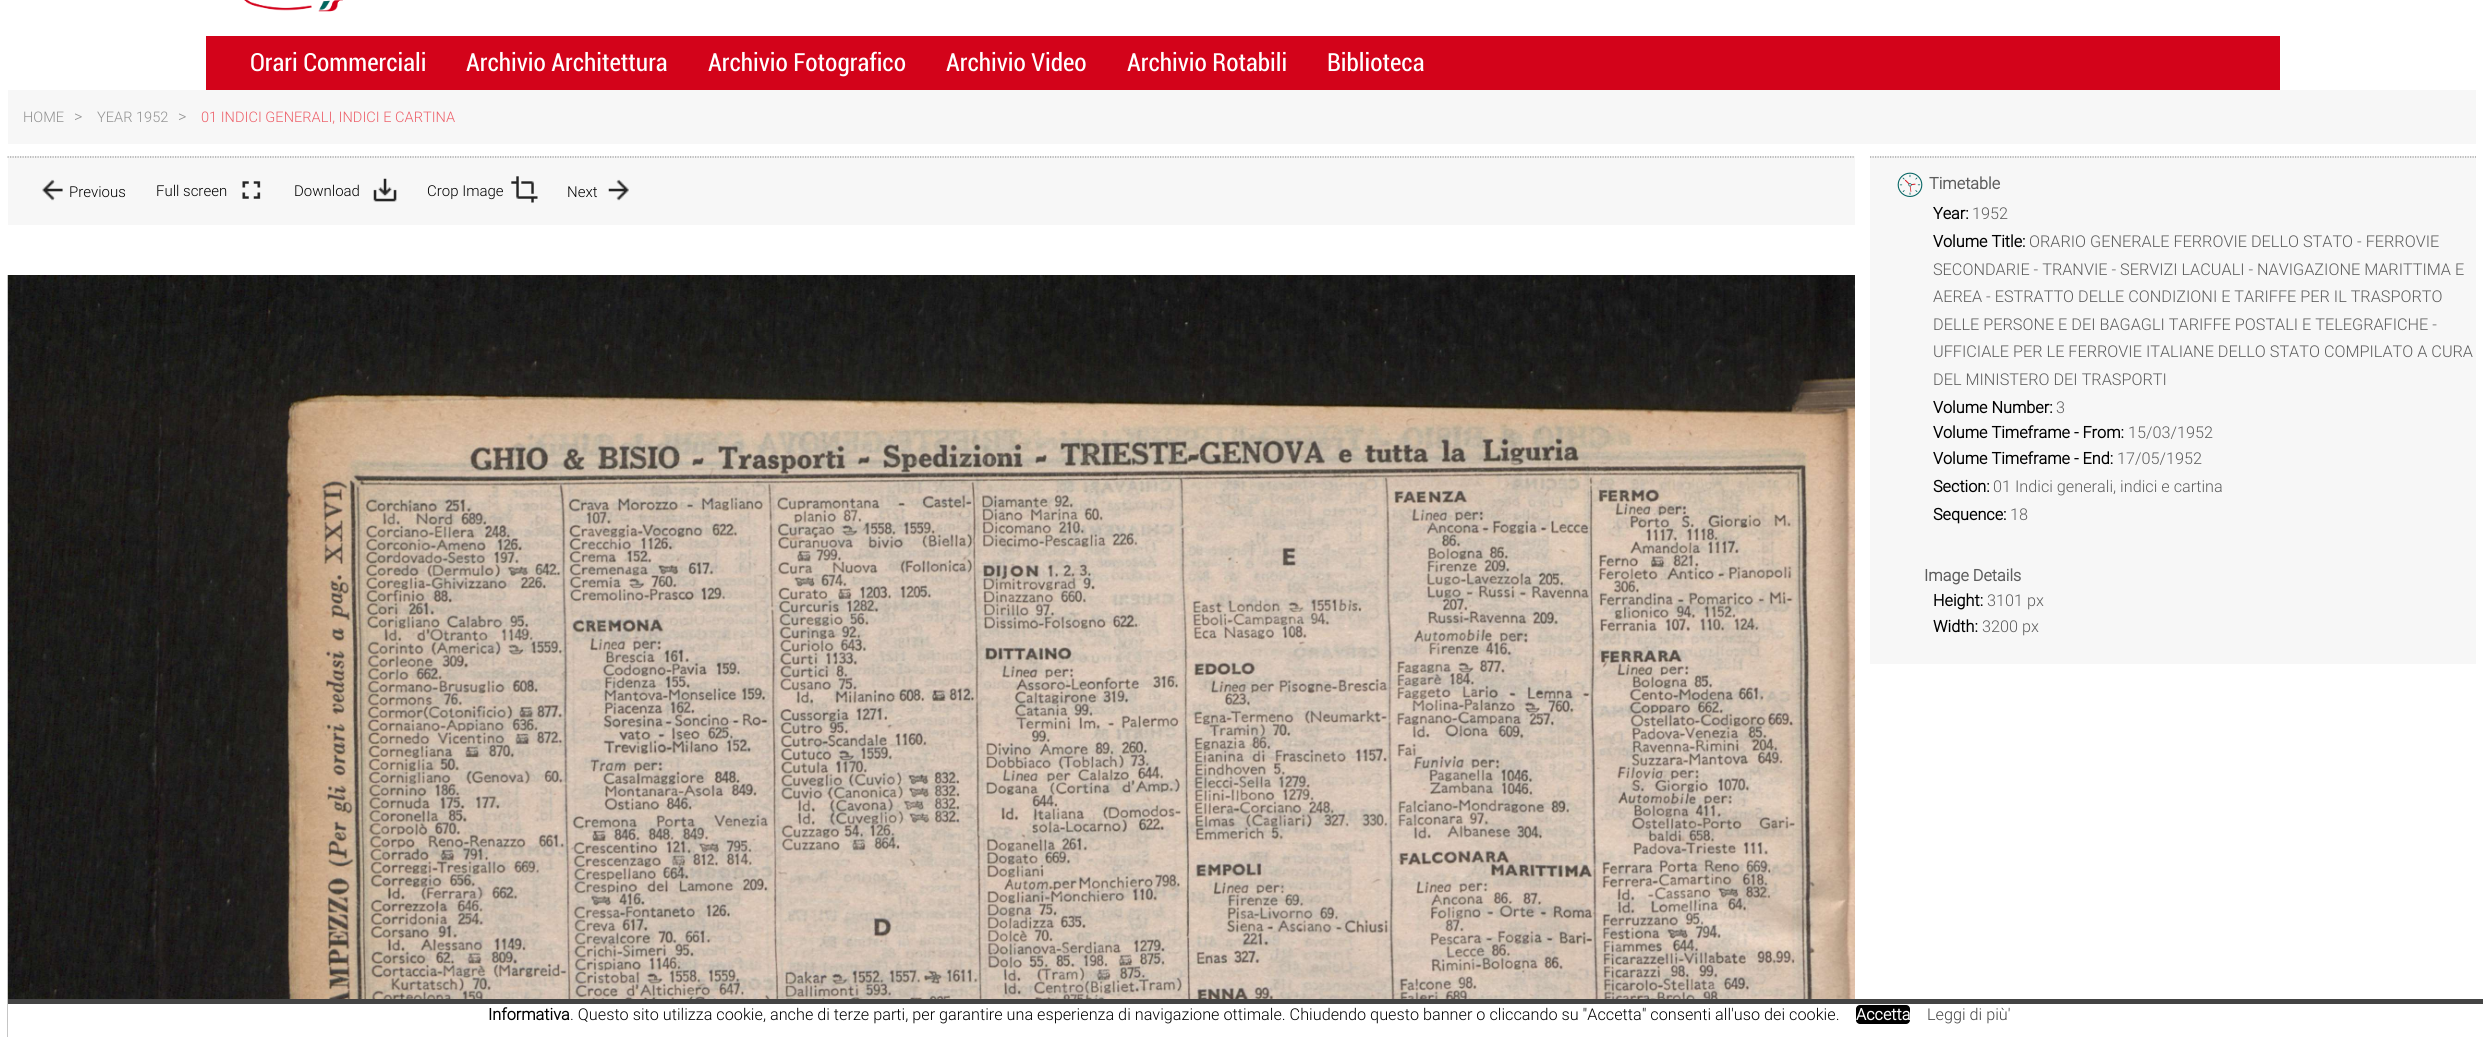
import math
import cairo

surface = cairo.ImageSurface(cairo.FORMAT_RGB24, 2483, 1037)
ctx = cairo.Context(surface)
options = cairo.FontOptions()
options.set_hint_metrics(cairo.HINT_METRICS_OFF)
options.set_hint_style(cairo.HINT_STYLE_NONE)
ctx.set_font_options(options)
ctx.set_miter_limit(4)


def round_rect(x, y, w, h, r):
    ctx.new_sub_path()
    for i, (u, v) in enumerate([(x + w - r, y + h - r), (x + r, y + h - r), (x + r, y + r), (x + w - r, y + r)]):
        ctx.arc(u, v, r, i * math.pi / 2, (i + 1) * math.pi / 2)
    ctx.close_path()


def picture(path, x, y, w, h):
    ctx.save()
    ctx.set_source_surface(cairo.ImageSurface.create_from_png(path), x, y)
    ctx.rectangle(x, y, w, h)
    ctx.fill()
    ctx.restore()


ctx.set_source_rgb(1, 1, 1)
ctx.paint()
picture("img1.png", 244, 0, 99, 12)
ctx.set_source_rgb(0.827, 0.012, 0.102)
ctx.rectangle(206, 36, 2074, 54)
ctx.fill()
ctx.select_font_face("Roboto")
ctx.set_font_size(25)
ctx.set_source_rgb(1, 1, 1)
ctx.move_to(250, 71)
ctx.show_text("Orari Commerciali")
ctx.move_to(466, 71)
ctx.show_text("Archivio Architettura")
ctx.move_to(708, 71)
ctx.show_text("Archivio Fotografico")
ctx.move_to(946, 71)
ctx.show_text("Archivio Video")
ctx.move_to(1127, 71)
ctx.show_text("Archivio Rotabili")
ctx.move_to(1327, 71)
ctx.show_text("Biblioteca")
ctx.set_source_rgb(0.965, 0.965, 0.965)
ctx.rectangle(8, 90, 2468, 54)
ctx.fill()
ctx.select_font_face("Roboto Light")
ctx.set_font_size(14.6)
ctx.set_source_rgb(0.569, 0.569, 0.569)
ctx.move_to(23, 122)
ctx.show_text("HOME")
ctx.set_font_size(16.25)
ctx.move_to(74, 122)
ctx.show_text(">")
ctx.set_font_size(14.6)
ctx.move_to(97, 122)
ctx.show_text("YEAR 1952")
ctx.set_font_size(16.25)
ctx.move_to(178, 122)
ctx.show_text(">")
ctx.set_font_size(14.6)
ctx.set_source_rgb(0.929, 0.373, 0.412)
ctx.move_to(201, 122)
ctx.show_text("01 INDICI GENERALI, INDICI E CARTINA")
ctx.set_source_rgb(0.965, 0.965, 0.965)
ctx.rectangle(8, 156, 1847, 69)
ctx.fill()
ctx.new_path()
ctx.move_to(7.5, 157)
ctx.line_to(1855, 157)
ctx.set_source_rgb(0.592, 0.592, 0.592)
ctx.set_line_width(1.2)
ctx.set_dash([1.25, 1.25])
ctx.stroke()
picture("img2.png", 42, 179, 21, 22)
ctx.set_font_size(15)
ctx.set_source_rgb(0, 0, 0)
ctx.move_to(69, 197)
ctx.show_text("Previous")
ctx.move_to(156, 196)
ctx.show_text("Full screen")
picture("img3.png", 242, 181, 19, 18)
ctx.move_to(294, 196)
ctx.show_text("Download")
picture("img4.png", 373, 178, 24, 24)
ctx.move_to(427, 196)
ctx.show_text("Crop Image")
picture("img5.png", 511, 176, 27, 27)
ctx.move_to(567, 197)
ctx.show_text("Next")
picture("img6.png", 608, 179, 21, 22)
picture("img7.png", 7, 275, 1848, 762)
ctx.set_source_rgb(0.965, 0.965, 0.965)
ctx.rectangle(1870, 156, 606, 508)
ctx.fill()
ctx.new_path()
ctx.move_to(1870, 157)
ctx.line_to(2476, 157)
ctx.set_source_rgb(0.592, 0.592, 0.592)
ctx.stroke()
picture("img8.png", 1897, 172, 26, 25)
ctx.select_font_face("Roboto", cairo.FONT_SLANT_NORMAL, cairo.FONT_WEIGHT_BOLD)
ctx.set_font_size(16.25)
ctx.set_source_rgb(0.365, 0.365, 0.365)
ctx.move_to(1929, 189)
ctx.show_text("Timetable")
ctx.set_source_rgb(0, 0, 0)
ctx.move_to(1933, 219)
ctx.show_text("Year:")
ctx.select_font_face("Roboto Light")
ctx.set_source_rgb(0.365, 0.365, 0.365)
ctx.move_to(1972, 219)
ctx.show_text("1952")
ctx.select_font_face("Roboto", cairo.FONT_SLANT_NORMAL, cairo.FONT_WEIGHT_BOLD)
ctx.set_source_rgb(0, 0, 0)
ctx.move_to(1933, 247)
ctx.show_text("Volume Title:")
ctx.select_font_face("Roboto Light")
ctx.set_source_rgb(0.365, 0.365, 0.365)
ctx.move_to(2029, 247)
ctx.show_text("ORARIO GENERALE FERROVIE DELLO STATO - FERROVIE")
ctx.move_to(1933, 275)
ctx.show_text("SECONDARIE - TRANVIE - SERVIZI LACUALI - NAVIGAZIONE MARITTIMA E")
ctx.move_to(1933, 302)
ctx.show_text("AEREA - ESTRATTO DELLE CONDIZIONI E TARIFFE PER IL TRASPORTO")
ctx.move_to(1933, 330)
ctx.show_text("DELLE PERSONE E DEI BAGAGLI TARIFFE POSTALI E TELEGRAFICHE -")
ctx.move_to(1933, 357)
ctx.show_text("UFFICIALE PER LE FERROVIE ITALIANE DELLO STATO COMPILATO A CURA")
ctx.move_to(1933, 385)
ctx.show_text("DEL MINISTERO DEI TRASPORTI")
ctx.select_font_face("Roboto", cairo.FONT_SLANT_NORMAL, cairo.FONT_WEIGHT_BOLD)
ctx.set_source_rgb(0, 0, 0)
ctx.move_to(1933, 413)
ctx.show_text("Volume Number:")
ctx.select_font_face("Roboto Light")
ctx.set_source_rgb(0.365, 0.365, 0.365)
ctx.move_to(2056, 413)
ctx.show_text("3")
ctx.select_font_face("Roboto", cairo.FONT_SLANT_NORMAL, cairo.FONT_WEIGHT_BOLD)
ctx.set_source_rgb(0, 0, 0)
ctx.move_to(1933, 438)
ctx.show_text("Volume Timeframe - From:")
ctx.select_font_face("Roboto Light")
ctx.set_source_rgb(0.365, 0.365, 0.365)
ctx.move_to(2128, 438)
ctx.show_text("15/03/1952")
ctx.select_font_face("Roboto", cairo.FONT_SLANT_NORMAL, cairo.FONT_WEIGHT_BOLD)
ctx.set_source_rgb(0, 0, 0)
ctx.move_to(1933, 464)
ctx.show_text("Volume Timeframe - End:")
ctx.select_font_face("Roboto Light")
ctx.set_source_rgb(0.365, 0.365, 0.365)
ctx.move_to(2117, 464)
ctx.show_text("17/05/1952")
ctx.select_font_face("Roboto", cairo.FONT_SLANT_NORMAL, cairo.FONT_WEIGHT_BOLD)
ctx.set_source_rgb(0, 0, 0)
ctx.move_to(1933, 492)
ctx.show_text("Section:")
ctx.select_font_face("Roboto Light")
ctx.set_source_rgb(0.365, 0.365, 0.365)
ctx.move_to(1993, 492)
ctx.show_text("01 Indici generali, indici e cartina")
ctx.select_font_face("Roboto", cairo.FONT_SLANT_NORMAL, cairo.FONT_WEIGHT_BOLD)
ctx.set_source_rgb(0, 0, 0)
ctx.move_to(1933, 520)
ctx.show_text("Sequence:")
ctx.select_font_face("Roboto Light")
ctx.set_source_rgb(0.365, 0.365, 0.365)
ctx.move_to(2010, 520)
ctx.show_text("18")
ctx.select_font_face("Roboto", cairo.FONT_SLANT_NORMAL, cairo.FONT_WEIGHT_BOLD)
ctx.move_to(1924, 581)
ctx.show_text("Image Details")
ctx.set_source_rgb(0, 0, 0)
ctx.move_to(1933, 606)
ctx.show_text("Height:")
ctx.select_font_face("Roboto Light")
ctx.set_source_rgb(0.365, 0.365, 0.365)
ctx.move_to(1987, 606)
ctx.show_text("3101 px")
ctx.select_font_face("Roboto", cairo.FONT_SLANT_NORMAL, cairo.FONT_WEIGHT_BOLD)
ctx.set_source_rgb(0, 0, 0)
ctx.move_to(1933, 632)
ctx.show_text("Width:")
ctx.select_font_face("Roboto Light")
ctx.set_source_rgb(0.365, 0.365, 0.365)
ctx.move_to(1982, 632)
ctx.show_text("3200 px")
ctx.set_source_rgb(1, 1, 1)
ctx.rectangle(8, 1004, 1847, 33)
ctx.fill()
ctx.set_source_rgb(0.267, 0.267, 0.267)
ctx.rectangle(8, 999, 2475, 5)
ctx.fill()
ctx.select_font_face("Roboto", cairo.FONT_SLANT_NORMAL, cairo.FONT_WEIGHT_BOLD)
ctx.set_source_rgb(0, 0, 0)
ctx.move_to(488, 1020)
ctx.show_text("Informativa")
ctx.select_font_face("Roboto Light")
ctx.move_to(570, 1020)
ctx.show_text(". Questo sito utilizza cookie, anche di terze parti, per garantire una esperienza di navigazione ottimale. Chiudendo questo banner o cliccando su \"Accetta\" consenti all'uso dei cookie.")
round_rect(1856, 1005, 54, 19, 4)
ctx.fill()
ctx.select_font_face("Roboto", cairo.FONT_SLANT_NORMAL, cairo.FONT_WEIGHT_BOLD)
ctx.set_source_rgb(1, 1, 1)
ctx.move_to(1856, 1020)
ctx.show_text("Accetta")
ctx.select_font_face("Roboto Light")
ctx.set_source_rgb(0.267, 0.267, 0.267)
ctx.move_to(1927, 1020)
ctx.show_text("Leggi di più'")
surface.write_to_png("page.png")
